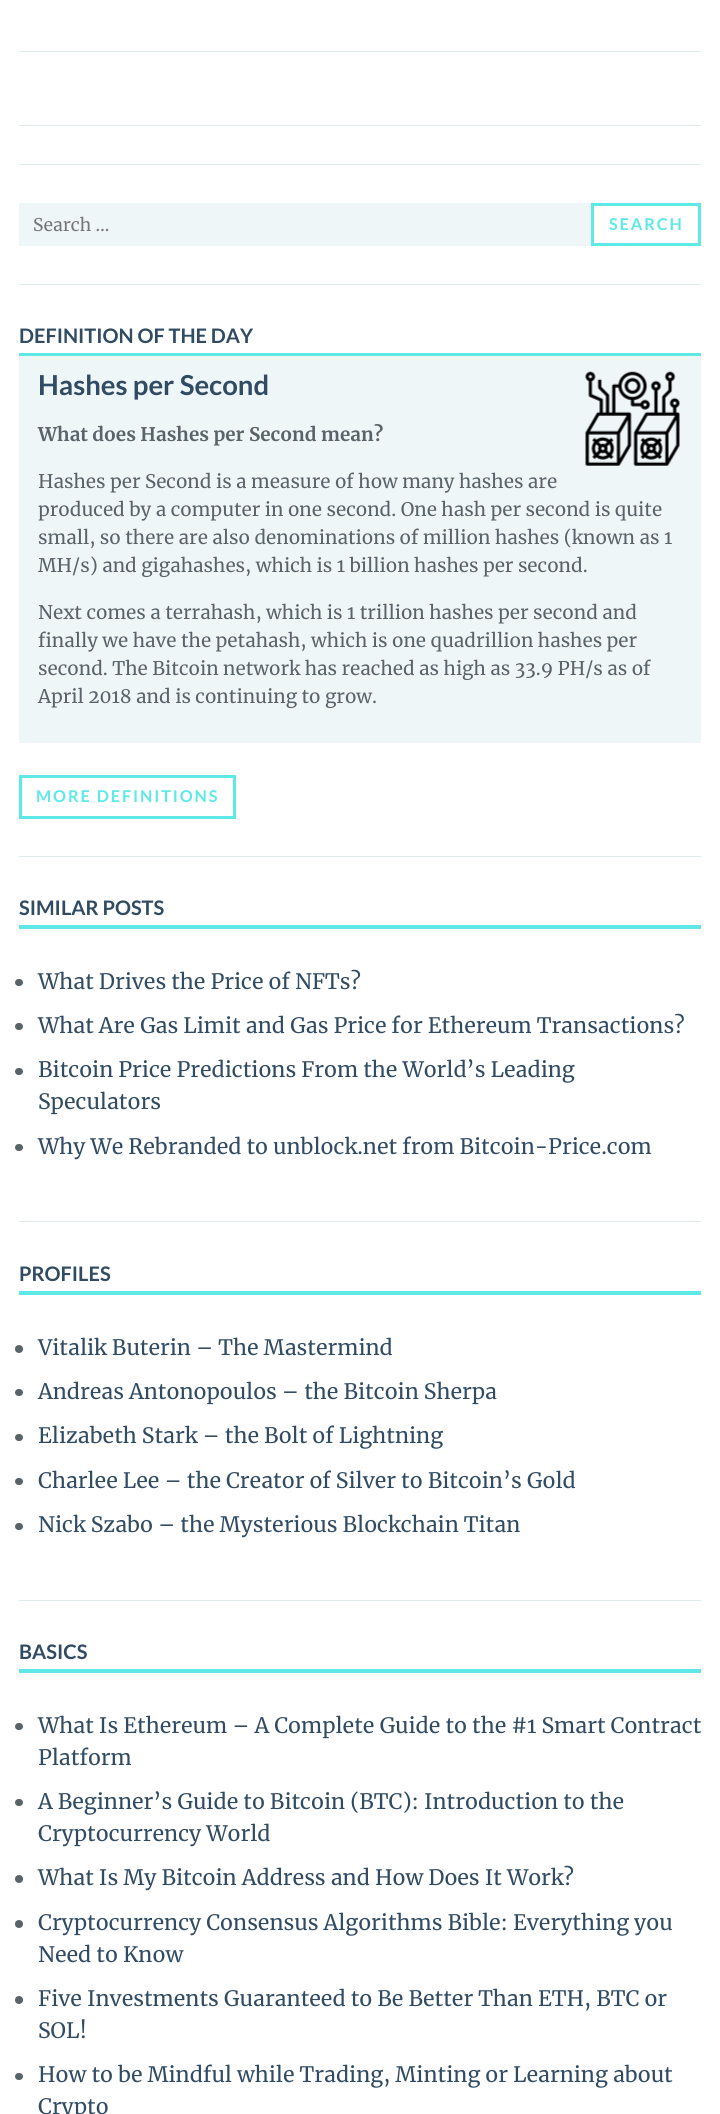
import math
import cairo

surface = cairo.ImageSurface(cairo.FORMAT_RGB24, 720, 2114)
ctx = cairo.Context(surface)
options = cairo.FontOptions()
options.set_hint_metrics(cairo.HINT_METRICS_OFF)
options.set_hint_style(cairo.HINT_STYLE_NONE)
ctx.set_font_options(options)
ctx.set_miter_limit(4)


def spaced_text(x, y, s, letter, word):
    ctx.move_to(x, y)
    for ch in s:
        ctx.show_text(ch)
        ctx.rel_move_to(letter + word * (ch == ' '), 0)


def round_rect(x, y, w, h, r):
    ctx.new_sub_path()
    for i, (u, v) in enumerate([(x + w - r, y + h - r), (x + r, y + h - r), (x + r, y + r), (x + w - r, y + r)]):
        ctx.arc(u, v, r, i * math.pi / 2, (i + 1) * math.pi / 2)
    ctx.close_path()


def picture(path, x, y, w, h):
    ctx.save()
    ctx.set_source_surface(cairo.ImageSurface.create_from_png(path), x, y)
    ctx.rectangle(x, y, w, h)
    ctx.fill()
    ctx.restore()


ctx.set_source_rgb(1, 1, 1)
ctx.paint()
ctx.set_source_rgb(0.886, 0.914, 0.922)
ctx.rectangle(19, 125, 682, 1)
ctx.fill()
ctx.rectangle(19, 51, 682, 1)
ctx.fill()
ctx.rectangle(19, 164, 682, 1)
ctx.fill()
ctx.rectangle(19, 284, 682, 1)
ctx.fill()
ctx.set_source_rgb(0.937, 0.961, 0.969)
ctx.rectangle(19, 203, 572, 43)
ctx.fill()
ctx.select_font_face("Merriweather")
ctx.set_font_size(17.5)
ctx.set_source_rgb(0.459, 0.459, 0.459)
ctx.move_to(33, 231)
ctx.show_text("Search …")
ctx.rectangle(592.5, 204.5, 107, 40)
ctx.set_source_rgb(0.365, 0.914, 0.898)
ctx.set_line_width(3)
ctx.stroke()
ctx.select_font_face("Lato", cairo.FONT_SLANT_NORMAL, cairo.FONT_WEIGHT_BOLD)
ctx.set_font_size(16.25)
spaced_text(609, 230, "SEARCH", 1.9, 0)
ctx.set_source_rgb(0.886, 0.914, 0.922)
ctx.rectangle(19, 856, 682, 1)
ctx.fill()
ctx.set_source_rgb(0.365, 0.914, 0.898)
ctx.rectangle(19, 353, 682, 3)
ctx.fill()
ctx.set_font_size(20)
ctx.set_source_rgb(0.192, 0.294, 0.384)
ctx.move_to(19, 343)
ctx.show_text("DEFINITION OF THE DAY")
ctx.set_source_rgb(0.937, 0.961, 0.969)
ctx.rectangle(19, 356, 682, 387)
ctx.fill()
ctx.set_font_size(27.5)
ctx.set_source_rgb(0.192, 0.294, 0.384)
ctx.move_to(38, 395)
ctx.show_text("Hashes per Second")
picture("img1.png", 585, 371, 95, 95)
ctx.select_font_face("Merriweather", cairo.FONT_SLANT_NORMAL, cairo.FONT_WEIGHT_BOLD)
ctx.set_font_size(18.75)
ctx.set_source_rgb(0.345, 0.392, 0.412)
ctx.move_to(38, 441)
ctx.show_text("What does Hashes per Second mean?")
ctx.select_font_face("Merriweather")
ctx.move_to(38, 488)
ctx.show_text("Hashes per Second is a measure of how many hashes are")
ctx.move_to(38, 516)
ctx.show_text("produced by a computer in one second. One hash per second is quite")
ctx.move_to(38, 544)
ctx.show_text("small, so there are also denominations of million hashes (known as 1")
ctx.move_to(38, 572)
ctx.show_text("MH/s) and gigahashes, which is 1 billion hashes per second.")
ctx.move_to(38, 619)
ctx.show_text("Next comes a terrahash, which is 1 trillion hashes per second and")
ctx.move_to(38, 647)
ctx.show_text("finally we have the petahash, which is one quadrillion hashes per")
ctx.move_to(38, 675)
ctx.show_text("second. The Bitcoin network has reached as high as 33.9 PH/s as of")
ctx.move_to(38, 703)
ctx.show_text("April 2018 and is continuing to grow.")
ctx.rectangle(20.5, 776.5, 214, 41)
ctx.set_source_rgb(0.365, 0.914, 0.898)
ctx.stroke()
ctx.select_font_face("Lato", cairo.FONT_SLANT_NORMAL, cairo.FONT_WEIGHT_BOLD)
ctx.set_font_size(16.25)
spaced_text(36, 802, "MORE DEFINITIONS", 1.9, 0)
ctx.set_source_rgb(0.886, 0.914, 0.922)
ctx.rectangle(19, 1221, 682, 1)
ctx.fill()
ctx.set_source_rgb(0.365, 0.914, 0.898)
ctx.rectangle(19, 925, 682, 4)
ctx.fill()
ctx.set_font_size(20)
ctx.set_source_rgb(0.192, 0.294, 0.384)
ctx.move_to(19, 915)
ctx.show_text("SIMILAR POSTS")
ctx.set_source_rgb(0.345, 0.392, 0.412)
round_rect(15, 979, 8, 7, 3.5)
ctx.fill()
ctx.select_font_face("Merriweather")
ctx.set_font_size(21.25)
ctx.set_source_rgb(0.192, 0.294, 0.384)
ctx.move_to(38, 989)
ctx.show_text("What Drives the Price of NFTs?")
ctx.set_source_rgb(0.345, 0.392, 0.412)
round_rect(15, 1023, 8, 7, 3.5)
ctx.fill()
ctx.set_source_rgb(0.192, 0.294, 0.384)
ctx.move_to(38, 1033)
ctx.show_text("What Are Gas Limit and Gas Price for Ethereum Transactions?")
ctx.set_source_rgb(0.345, 0.392, 0.412)
round_rect(15, 1068, 8, 7, 3.5)
ctx.fill()
ctx.set_source_rgb(0.192, 0.294, 0.384)
ctx.move_to(38, 1077)
ctx.show_text("Bitcoin Price Predictions From the World’s Leading")
ctx.move_to(38, 1109)
ctx.show_text("Speculators")
ctx.set_source_rgb(0.345, 0.392, 0.412)
round_rect(15, 1144, 8, 7, 3.5)
ctx.fill()
ctx.set_source_rgb(0.192, 0.294, 0.384)
ctx.move_to(38, 1154)
ctx.show_text("Why We Rebranded to unblock.net from Bitcoin-Price.com")
ctx.set_source_rgb(0.886, 0.914, 0.922)
ctx.rectangle(19, 1600, 682, 1)
ctx.fill()
ctx.set_source_rgb(0.365, 0.914, 0.898)
ctx.rectangle(19, 1291, 682, 4)
ctx.fill()
ctx.select_font_face("Lato", cairo.FONT_SLANT_NORMAL, cairo.FONT_WEIGHT_BOLD)
ctx.set_font_size(20)
ctx.set_source_rgb(0.192, 0.294, 0.384)
ctx.move_to(19, 1281)
ctx.show_text("PROFILES")
ctx.set_source_rgb(0.345, 0.392, 0.412)
ctx.new_path()
ctx.arc(19, 1349, 4, 0, 2 * math.pi)
ctx.fill()
ctx.select_font_face("Merriweather")
ctx.set_font_size(21.25)
ctx.set_source_rgb(0.192, 0.294, 0.384)
ctx.move_to(38, 1355)
ctx.show_text("Vitalik Buterin – The Mastermind")
ctx.set_source_rgb(0.345, 0.392, 0.412)
round_rect(15, 1389, 8, 7, 3.5)
ctx.fill()
ctx.set_source_rgb(0.192, 0.294, 0.384)
ctx.move_to(38, 1399)
ctx.show_text("Andreas Antonopoulos – the Bitcoin Sherpa")
ctx.set_source_rgb(0.345, 0.392, 0.412)
round_rect(15, 1434, 8, 7, 3.5)
ctx.fill()
ctx.set_source_rgb(0.192, 0.294, 0.384)
ctx.move_to(38, 1443)
ctx.show_text("Elizabeth Stark – the Bolt of Lightning")
ctx.set_source_rgb(0.345, 0.392, 0.412)
round_rect(15, 1478, 8, 7, 3.5)
ctx.fill()
ctx.set_source_rgb(0.192, 0.294, 0.384)
ctx.move_to(38, 1488)
ctx.show_text("Charlee Lee – the Creator of Silver to Bitcoin’s Gold")
ctx.set_source_rgb(0.345, 0.392, 0.412)
round_rect(15, 1523, 8, 7, 3.5)
ctx.fill()
ctx.set_source_rgb(0.192, 0.294, 0.384)
ctx.move_to(38, 1532)
ctx.show_text("Nick Szabo – the Mysterious Blockchain Titan")
ctx.set_source_rgb(0.365, 0.914, 0.898)
ctx.rectangle(19, 1669, 682, 4)
ctx.fill()
ctx.select_font_face("Lato", cairo.FONT_SLANT_NORMAL, cairo.FONT_WEIGHT_BOLD)
ctx.set_font_size(20)
ctx.set_source_rgb(0.192, 0.294, 0.384)
ctx.move_to(19, 1659)
ctx.show_text("BASICS")
ctx.set_source_rgb(0.345, 0.392, 0.412)
round_rect(15, 1723, 8, 7, 3.5)
ctx.fill()
ctx.select_font_face("Merriweather")
ctx.set_font_size(21.25)
ctx.set_source_rgb(0.192, 0.294, 0.384)
ctx.move_to(38, 1733)
ctx.show_text("What Is Ethereum – A Complete Guide to the #1 Smart Contract")
ctx.move_to(38, 1765)
ctx.show_text("Platform")
ctx.set_source_rgb(0.345, 0.392, 0.412)
round_rect(15, 1799, 8, 7, 3.5)
ctx.fill()
ctx.set_source_rgb(0.192, 0.294, 0.384)
ctx.move_to(38, 1809)
ctx.show_text("A Beginner’s Guide to Bitcoin (BTC): Introduction to the")
ctx.move_to(38, 1841)
ctx.show_text("Cryptocurrency World")
ctx.set_source_rgb(0.345, 0.392, 0.412)
ctx.new_path()
ctx.arc(19, 1879, 4, 0, 2 * math.pi)
ctx.fill()
ctx.set_source_rgb(0.192, 0.294, 0.384)
ctx.move_to(38, 1885)
ctx.show_text("What Is My Bitcoin Address and How Does It Work?")
ctx.set_source_rgb(0.345, 0.392, 0.412)
ctx.new_path()
ctx.arc(19, 1924, 4, 0, 2 * math.pi)
ctx.fill()
ctx.set_source_rgb(0.192, 0.294, 0.384)
ctx.move_to(38, 1930)
ctx.show_text("Cryptocurrency Consensus Algorithms Bible: Everything you")
ctx.move_to(38, 1962)
ctx.show_text("Need to Know")
ctx.set_source_rgb(0.345, 0.392, 0.412)
ctx.new_path()
ctx.arc(19, 2000, 4, 0, 2 * math.pi)
ctx.fill()
ctx.set_source_rgb(0.192, 0.294, 0.384)
ctx.move_to(38, 2006)
ctx.show_text("Five Investments Guaranteed to Be Better Than ETH, BTC or")
ctx.move_to(38, 2038)
ctx.show_text("SOL!")
ctx.set_source_rgb(0.345, 0.392, 0.412)
round_rect(15, 2073, 8, 7, 3.5)
ctx.fill()
ctx.set_source_rgb(0.192, 0.294, 0.384)
ctx.move_to(38, 2082)
ctx.show_text("How to be Mindful while Trading, Minting or Learning about")
ctx.move_to(38, 2114)
ctx.show_text("Crypto")
surface.write_to_png("page.png")
